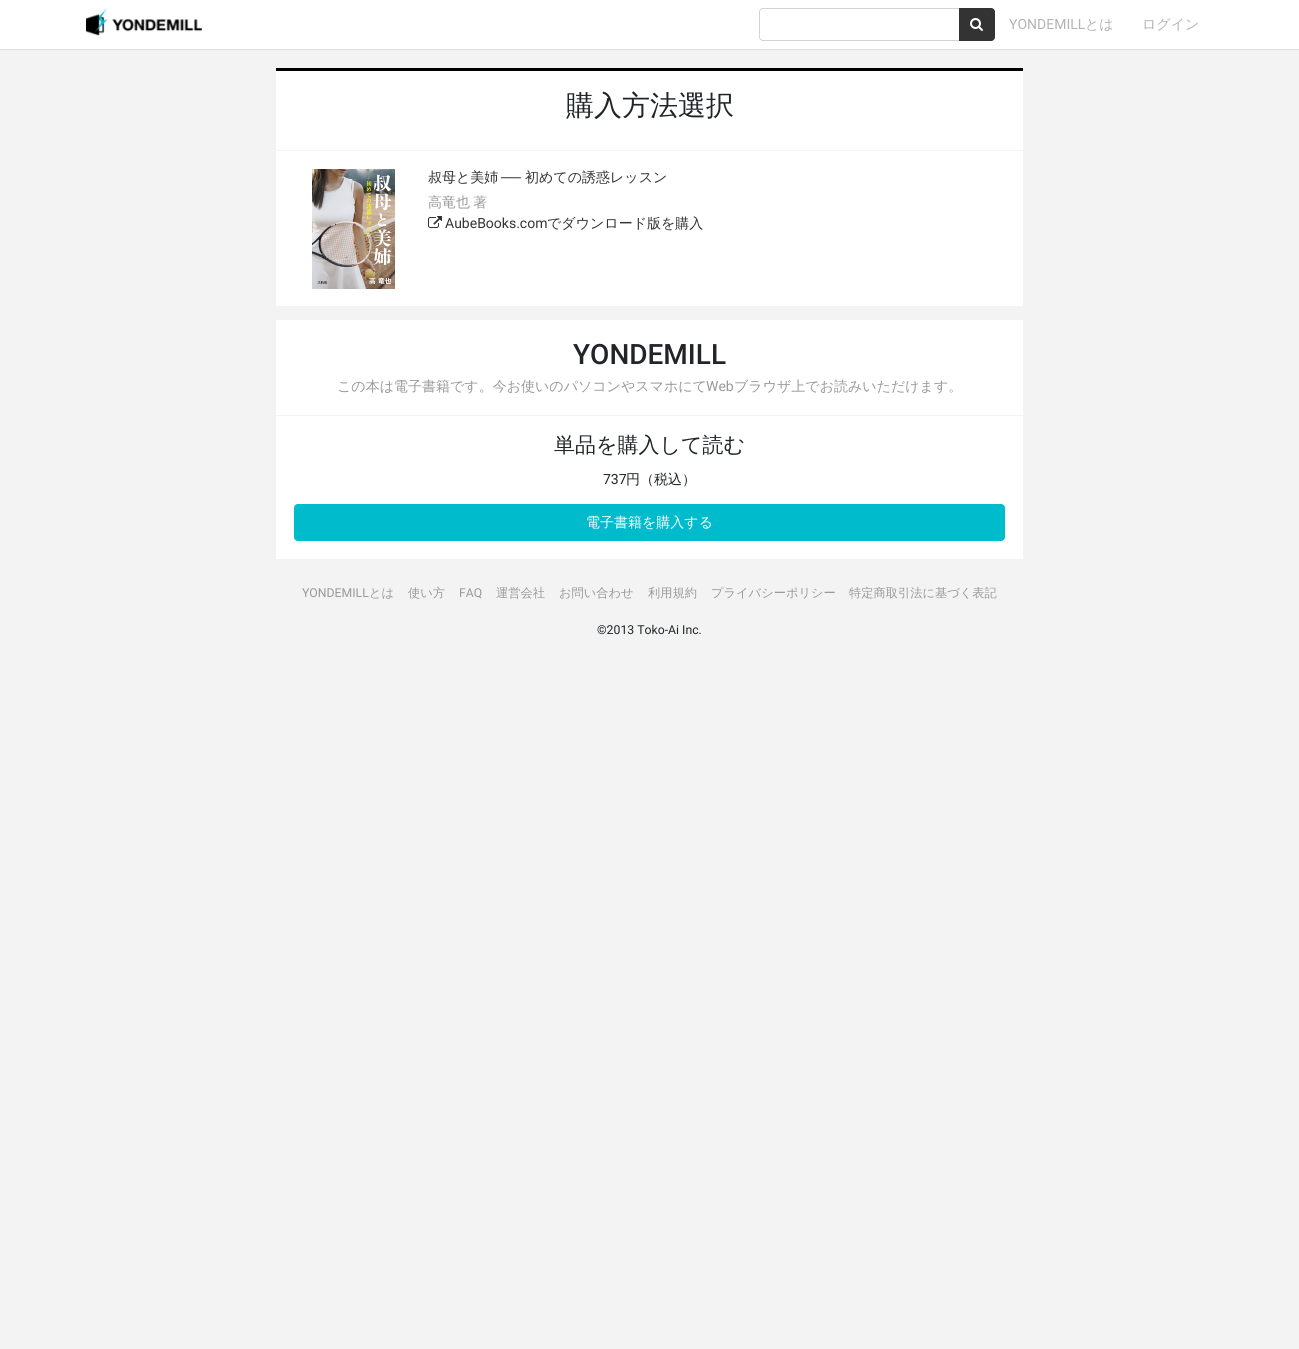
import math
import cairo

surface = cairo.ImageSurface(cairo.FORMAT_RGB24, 1299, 1349)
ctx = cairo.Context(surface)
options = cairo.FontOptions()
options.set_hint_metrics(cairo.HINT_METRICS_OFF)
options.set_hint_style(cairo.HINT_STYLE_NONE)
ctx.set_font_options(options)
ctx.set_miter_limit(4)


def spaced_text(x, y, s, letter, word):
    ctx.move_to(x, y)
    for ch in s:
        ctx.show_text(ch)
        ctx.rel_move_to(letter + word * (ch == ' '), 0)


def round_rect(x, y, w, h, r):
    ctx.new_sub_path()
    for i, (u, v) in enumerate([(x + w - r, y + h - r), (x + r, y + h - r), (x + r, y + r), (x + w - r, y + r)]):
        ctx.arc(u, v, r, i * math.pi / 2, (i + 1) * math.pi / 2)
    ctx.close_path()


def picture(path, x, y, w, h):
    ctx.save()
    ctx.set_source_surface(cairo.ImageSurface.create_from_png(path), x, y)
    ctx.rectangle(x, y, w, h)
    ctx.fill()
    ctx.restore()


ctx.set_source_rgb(0.953, 0.953, 0.953)
ctx.paint()
ctx.set_source_rgb(1, 1, 1)
ctx.rectangle(0, 0, 1299, 49)
ctx.fill()
ctx.set_source_rgb(0.867, 0.867, 0.867)
ctx.rectangle(0, 49, 1299, 1)
ctx.fill()
picture("img1.png", 86, 8, 116, 28)
ctx.new_path()
ctx.move_to(763, 8.5)
ctx.line_to(959.5, 8.5)
ctx.line_to(959.5, 40.5)
ctx.line_to(763, 40.5)
ctx.curve_to(761, 40.5, 759.5, 39, 759.5, 37)
ctx.line_to(759.5, 12)
ctx.curve_to(759.5, 10, 761, 8.5, 763, 8.5)
ctx.close_path()
ctx.set_source_rgb(0.808, 0.831, 0.855)
ctx.set_line_width(1)
ctx.stroke()
ctx.set_source_rgb(0.2, 0.2, 0.2)
ctx.new_path()
ctx.move_to(959.5, 8.5)
ctx.line_to(991, 8.5)
ctx.curve_to(993, 8.5, 994.5, 10, 994.5, 12)
ctx.line_to(994.5, 37)
ctx.curve_to(994.5, 39, 993, 40.5, 991, 40.5)
ctx.line_to(959.5, 40.5)
ctx.close_path()
ctx.fill_preserve()
ctx.stroke()
picture("img2.png", 970, 18, 13, 13)
ctx.select_font_face("Roboto")
ctx.set_font_size(14)
ctx.set_source_rgb(0.702, 0.702, 0.702)
ctx.move_to(1009, 29)
ctx.show_text("YONDEMILL")
ctx.select_font_face("WenQuanYi Zen Hei Medium")
ctx.move_to(1085, 29)
ctx.show_text("とは")
ctx.move_to(1142, 29)
ctx.show_text("ログイン")
ctx.set_source_rgb(1, 1, 1)
ctx.rectangle(276, 71, 747, 235)
ctx.fill()
ctx.set_source_rgb(0, 0, 0)
ctx.rectangle(276, 68, 747, 3)
ctx.fill()
ctx.set_source_rgb(0.953, 0.953, 0.953)
ctx.rectangle(276, 150, 747, 1)
ctx.fill()
ctx.set_font_size(28)
ctx.set_source_rgb(0.129, 0.145, 0.161)
ctx.move_to(566, 115)
ctx.show_text("購入方法選択")
picture("img3.png", 312, 169, 83, 120)
ctx.set_font_size(14)
ctx.set_source_rgb(0.2, 0.2, 0.2)
ctx.move_to(428, 182)
ctx.show_text("叔母と美姉")
ctx.select_font_face("Liberation Sans")
ctx.move_to(501, 182)
ctx.show_text("──")
ctx.select_font_face("WenQuanYi Zen Hei Medium")
ctx.move_to(525, 182)
ctx.show_text("初めての誘惑レッスン")
ctx.set_source_rgb(0.6, 0.6, 0.6)
spaced_text(428, 207, "高竜也 著", 0, -1)
picture("img4.png", 428, 216, 14, 12)
ctx.select_font_face("Roboto")
ctx.set_source_rgb(0.2, 0.2, 0.2)
ctx.move_to(445, 228)
ctx.show_text("AubeBooks.com")
ctx.select_font_face("WenQuanYi Zen Hei Medium")
ctx.move_to(547, 228)
ctx.show_text("でダウンロード版を購入")
ctx.set_source_rgb(1, 1, 1)
ctx.rectangle(276, 320, 747, 239)
ctx.fill()
ctx.set_source_rgb(0.953, 0.953, 0.953)
ctx.rectangle(276, 415, 747, 1)
ctx.fill()
ctx.select_font_face("Roboto Medium")
ctx.set_font_size(28)
ctx.set_source_rgb(0.129, 0.145, 0.161)
ctx.move_to(573, 364)
ctx.show_text("YONDEMILL")
ctx.select_font_face("WenQuanYi Zen Hei Medium")
ctx.set_font_size(14)
ctx.set_source_rgb(0.6, 0.6, 0.6)
ctx.move_to(337, 391)
ctx.show_text("この本は電子書籍です。今お使いのパソコンやスマホにて")
ctx.select_font_face("Roboto")
ctx.move_to(706, 391)
ctx.show_text("Web")
ctx.select_font_face("WenQuanYi Zen Hei Medium")
ctx.move_to(734, 391)
ctx.show_text("ブラウザ上でお読みいただけます。")
ctx.set_font_size(21)
ctx.set_source_rgb(0.129, 0.145, 0.161)
ctx.move_to(554, 452)
ctx.show_text("単品を購入して読む")
ctx.select_font_face("Roboto")
ctx.set_font_size(14)
ctx.move_to(603, 484)
ctx.show_text("737")
ctx.select_font_face("WenQuanYi Zen Hei Medium")
ctx.move_to(626, 484)
ctx.show_text("円（税込）")
ctx.set_source_rgb(0, 0.733, 0.8)
round_rect(294.5, 504.5, 710, 36, 3.5)
ctx.fill_preserve()
ctx.stroke()
ctx.set_source_rgb(1, 1, 1)
ctx.move_to(586, 527)
ctx.show_text("電子書籍を購入する")
ctx.select_font_face("Roboto")
ctx.set_font_size(12.25)
ctx.set_source_rgb(0.6, 0.6, 0.6)
ctx.move_to(302, 597)
ctx.show_text("YONDEMILL")
ctx.select_font_face("WenQuanYi Zen Hei Medium")
ctx.move_to(369, 597)
ctx.show_text("とは")
ctx.move_to(408, 597)
ctx.show_text("使い方")
ctx.select_font_face("Roboto")
ctx.move_to(459, 597)
ctx.show_text("FAQ")
ctx.select_font_face("WenQuanYi Zen Hei Medium")
ctx.move_to(496, 597)
ctx.show_text("運営会社")
ctx.move_to(559, 597)
ctx.show_text("お問い合わせ")
ctx.move_to(648, 597)
ctx.show_text("利用規約")
ctx.move_to(711, 597)
ctx.show_text("プライバシーポリシー")
ctx.move_to(849, 597)
ctx.show_text("特定商取引法に基づく表記")
ctx.select_font_face("Roboto")
ctx.set_source_rgb(0.129, 0.145, 0.161)
ctx.move_to(597, 634)
ctx.show_text("©2013 Toko-Ai Inc.")
surface.write_to_png("page.png")
